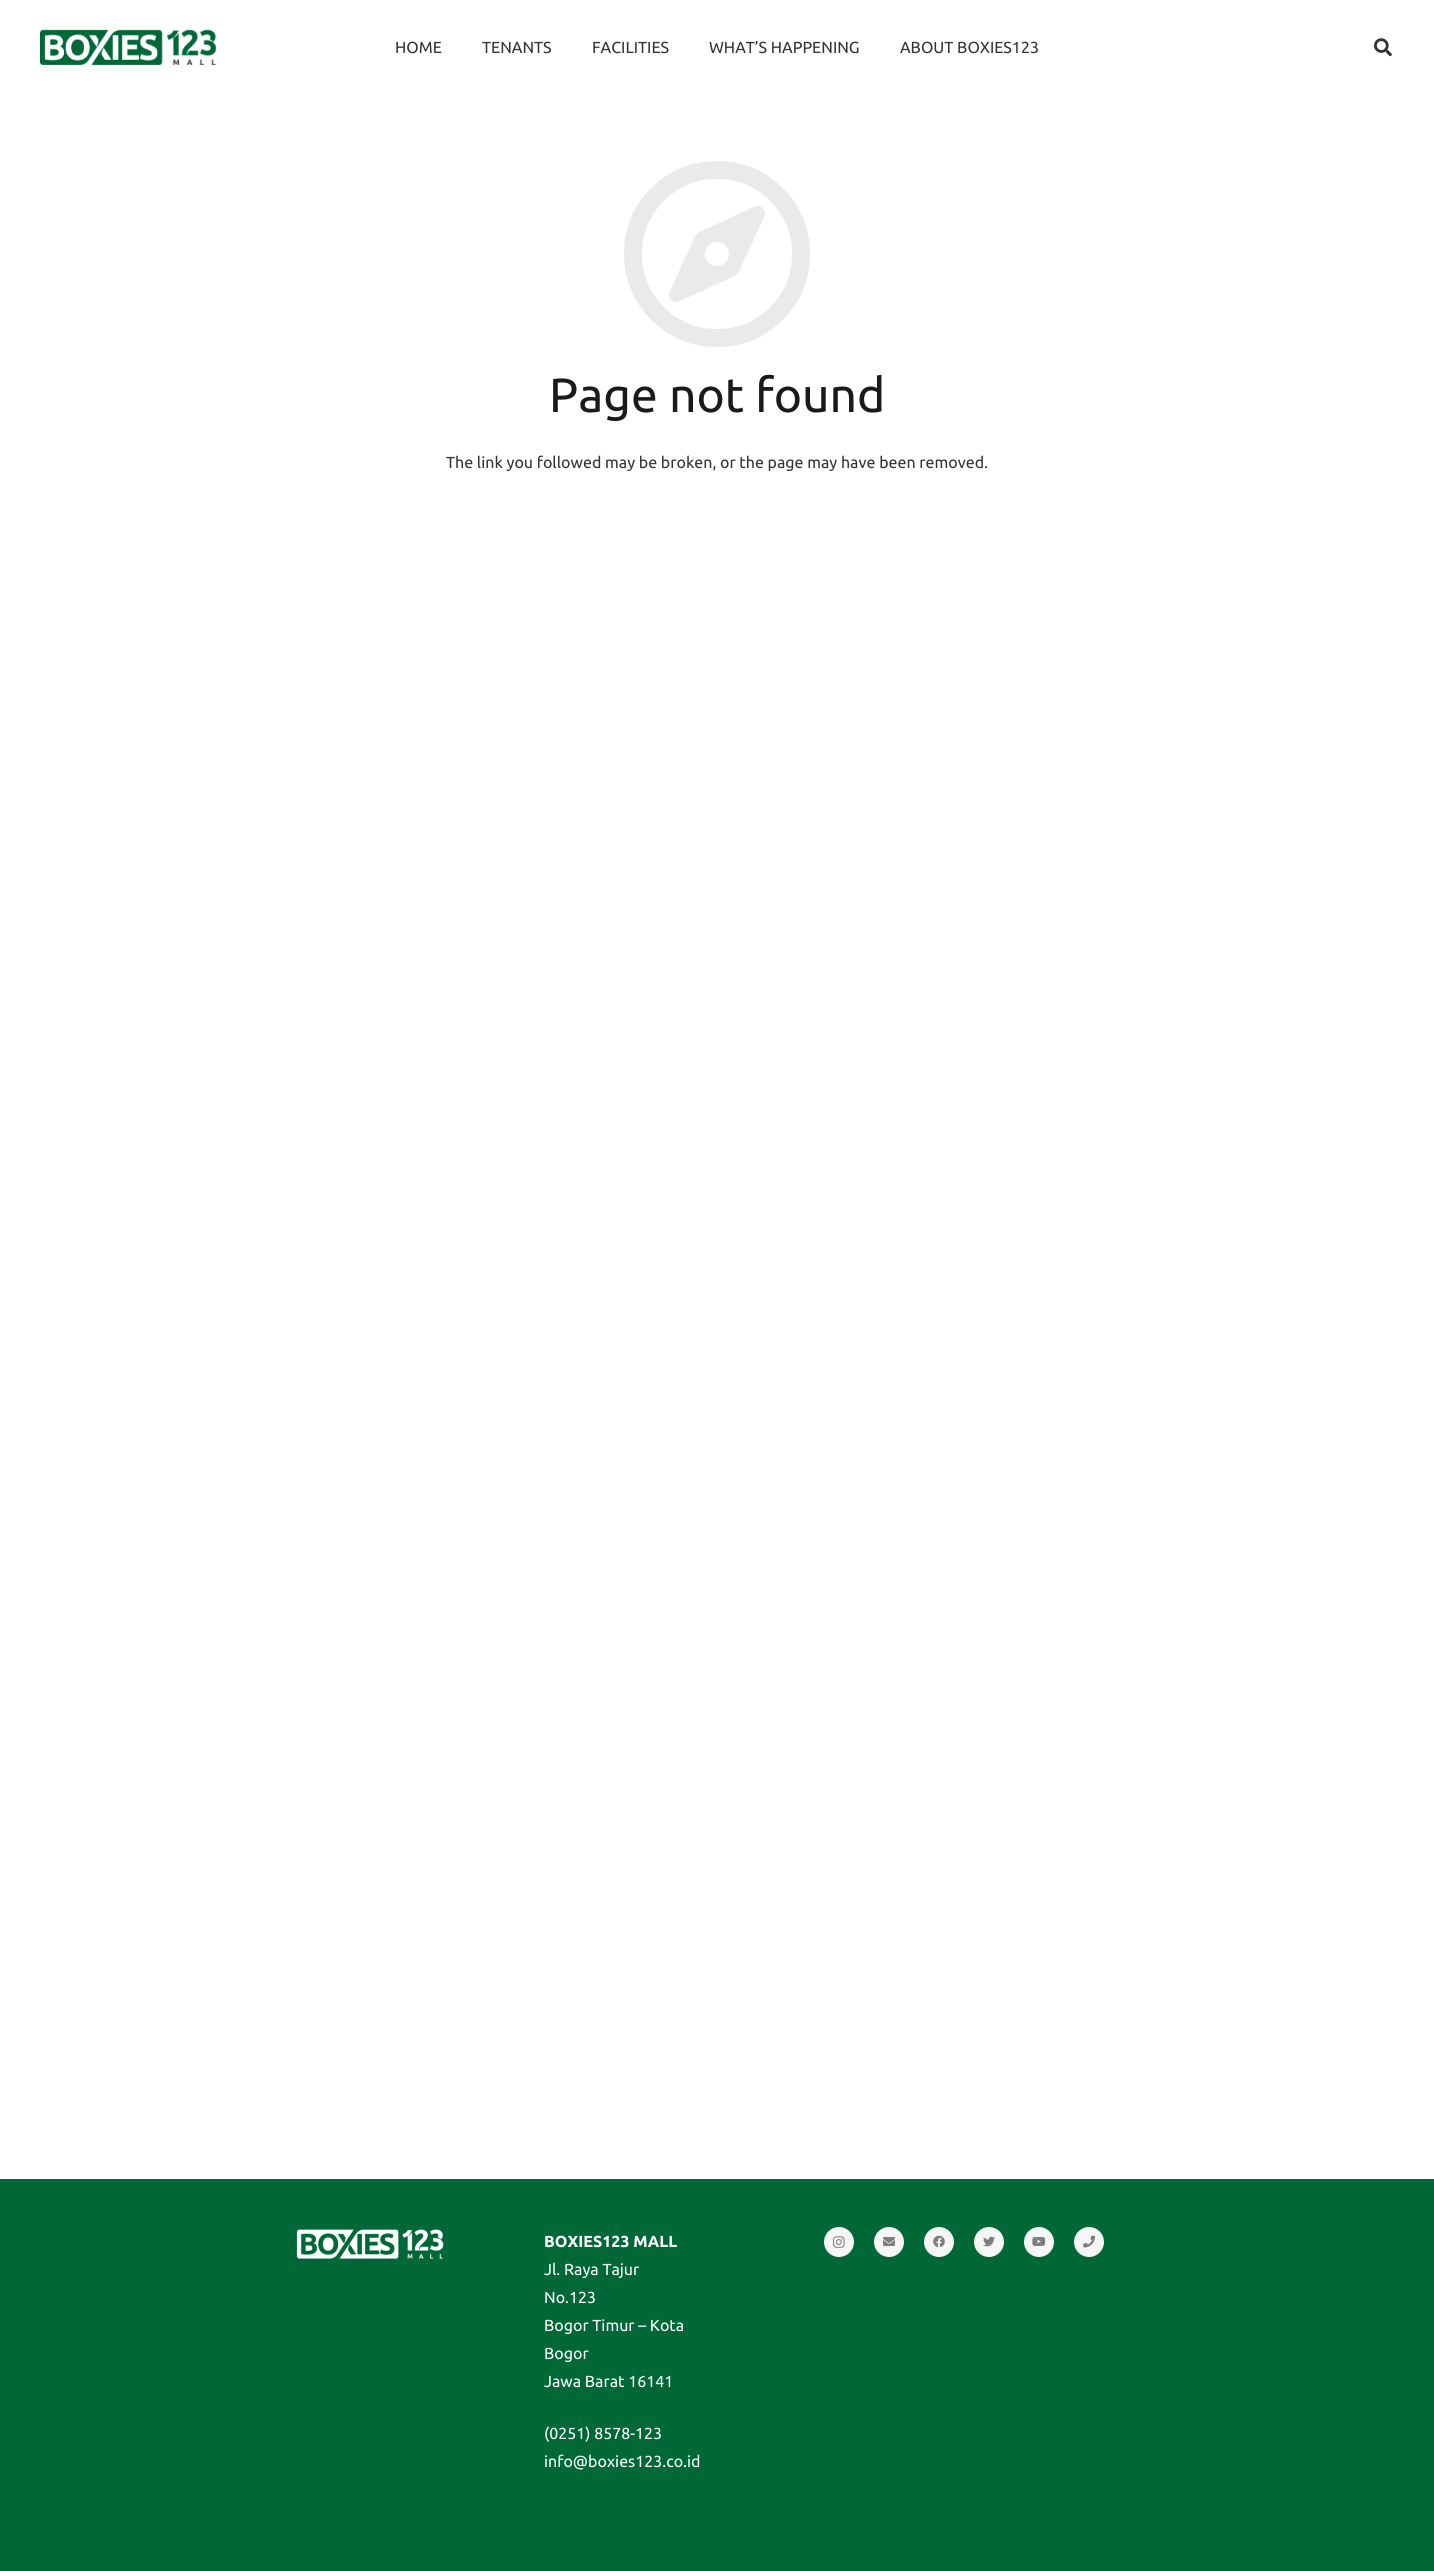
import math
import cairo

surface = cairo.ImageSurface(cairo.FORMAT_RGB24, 1434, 2571)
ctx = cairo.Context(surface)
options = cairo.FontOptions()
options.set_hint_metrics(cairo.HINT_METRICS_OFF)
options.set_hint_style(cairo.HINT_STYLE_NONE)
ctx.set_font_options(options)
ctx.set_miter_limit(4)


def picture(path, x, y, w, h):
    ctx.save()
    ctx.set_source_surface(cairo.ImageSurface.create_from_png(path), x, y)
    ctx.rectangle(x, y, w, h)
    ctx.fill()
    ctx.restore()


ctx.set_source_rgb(1, 1, 1)
ctx.paint()
picture("img1.png", 40, 29, 176, 36)
ctx.select_font_face("Ubuntu")
ctx.set_font_size(16)
ctx.set_source_rgb(0.2, 0.2, 0.2)
ctx.move_to(395, 53)
ctx.show_text("HOME")
ctx.move_to(482, 53)
ctx.show_text("TENANTS")
ctx.move_to(592, 53)
ctx.show_text("FACILITIES")
ctx.move_to(709, 53)
ctx.show_text("WHAT’S HAPPENING")
ctx.move_to(900, 53)
ctx.show_text("ABOUT BOXIES123")
picture("img2.png", 1374, 38, 18, 19)
picture("img3.png", 624, 161, 186, 186)
ctx.set_font_size(48)
ctx.set_source_rgb(0.102, 0.102, 0.102)
ctx.move_to(549, 412)
ctx.show_text("Page not found")
ctx.set_font_size(16)
ctx.set_source_rgb(0.2, 0.2, 0.2)
ctx.move_to(446, 468)
ctx.show_text("The link you followed may be broken, or the page may have been removed.")
ctx.set_source_rgb(0, 0.408, 0.216)
ctx.rectangle(0, 2179, 1434, 392)
ctx.fill()
picture("img4.png", 296, 2229, 148, 30)
ctx.select_font_face("Ubuntu", cairo.FONT_SLANT_NORMAL, cairo.FONT_WEIGHT_BOLD)
ctx.set_source_rgb(1, 1, 1)
ctx.move_to(544, 2247)
ctx.show_text("BOXIES123 MALL")
ctx.select_font_face("Ubuntu")
ctx.move_to(544, 2275)
ctx.show_text("Jl. Raya Tajur")
ctx.move_to(544, 2303)
ctx.show_text("No.123")
ctx.move_to(544, 2331)
ctx.show_text("Bogor Timur – Kota")
ctx.move_to(544, 2359)
ctx.show_text("Bogor")
ctx.move_to(544, 2387)
ctx.show_text("Jawa Barat 16141")
ctx.move_to(544, 2439)
ctx.show_text("(0251) 8578-123")
ctx.move_to(544, 2467)
ctx.show_text("info@boxies123.co.id")
ctx.set_source_rgb(0.961, 0.961, 0.961)
ctx.new_path()
ctx.arc(839, 2242, 15, 0, 2 * math.pi)
ctx.fill()
picture("img5.png", 833, 2236, 12, 12)
ctx.arc(889, 2242, 15, 0, 2 * math.pi)
ctx.fill()
picture("img6.png", 883, 2237, 12, 9)
ctx.arc(939, 2242, 15, 0, 2 * math.pi)
ctx.fill()
picture("img7.png", 933, 2235, 12, 13)
ctx.arc(989, 2242, 15, 0, 2 * math.pi)
ctx.fill()
picture("img8.png", 983, 2236, 12, 11)
ctx.arc(1039, 2242, 15, 0, 2 * math.pi)
ctx.fill()
picture("img9.png", 1032, 2237, 14, 9)
ctx.arc(1089, 2242, 15, 0, 2 * math.pi)
ctx.fill()
picture("img10.png", 1083, 2235, 12, 13)
surface.write_to_png("page.png")
